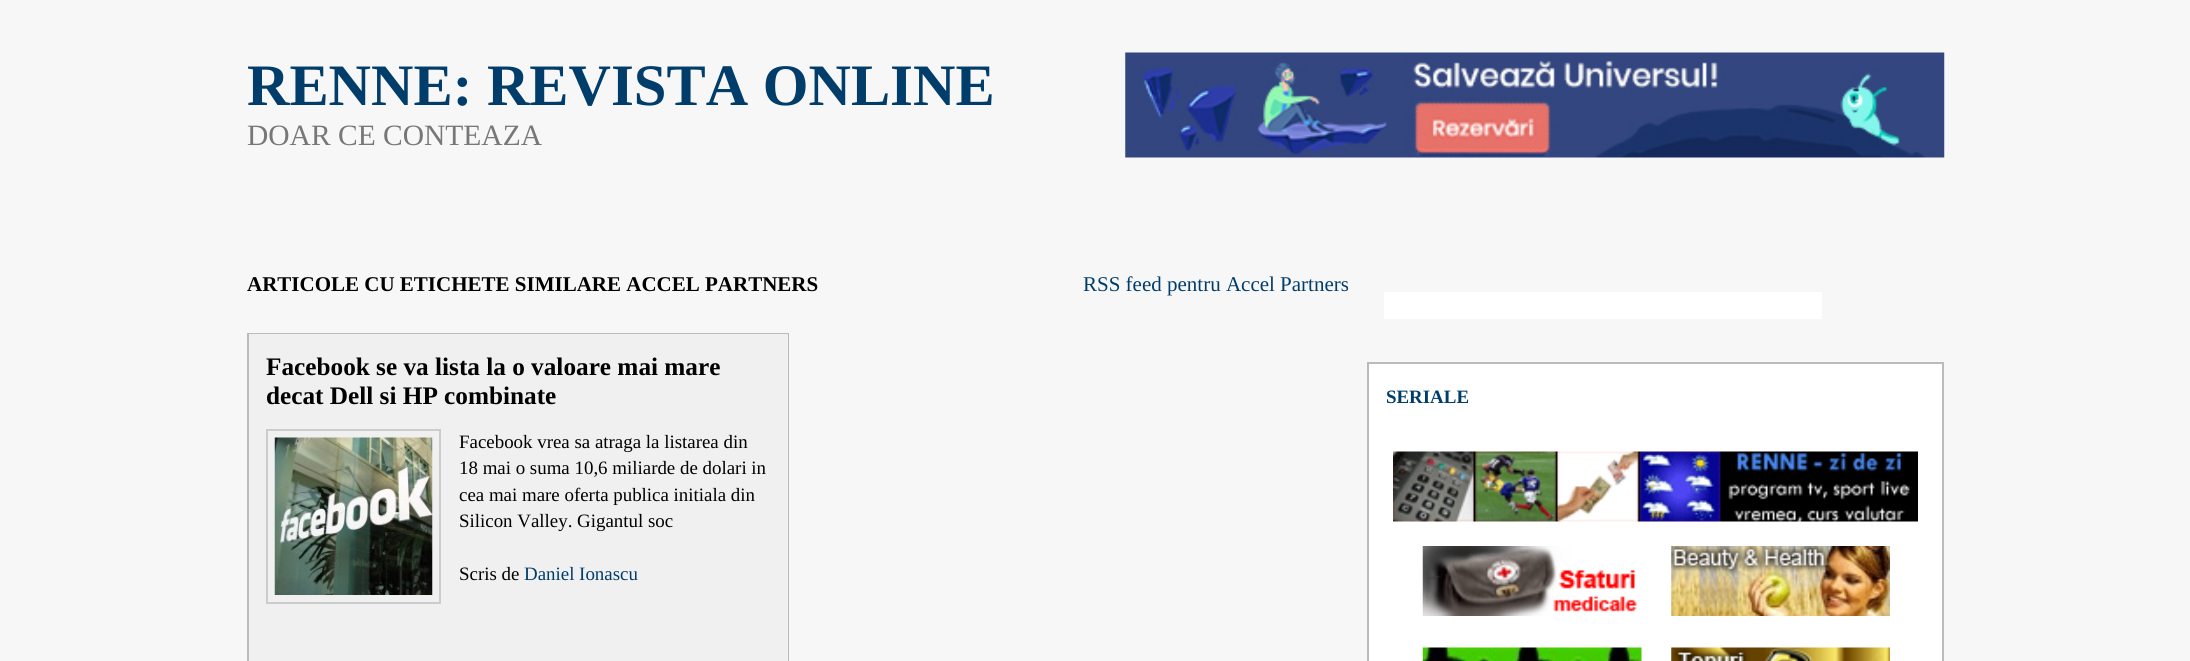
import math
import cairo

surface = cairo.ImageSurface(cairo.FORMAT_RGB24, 2190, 661)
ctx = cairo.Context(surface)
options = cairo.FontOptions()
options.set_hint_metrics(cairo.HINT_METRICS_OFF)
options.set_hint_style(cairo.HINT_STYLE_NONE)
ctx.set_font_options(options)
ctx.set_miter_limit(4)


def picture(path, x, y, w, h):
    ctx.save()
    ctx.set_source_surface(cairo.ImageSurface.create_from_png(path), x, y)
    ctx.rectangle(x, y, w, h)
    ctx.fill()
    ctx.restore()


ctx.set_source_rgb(0.969, 0.965, 0.965)
ctx.paint()
ctx.select_font_face("Liberation Serif", cairo.FONT_SLANT_NORMAL, cairo.FONT_WEIGHT_BOLD)
ctx.set_font_size(58.75)
ctx.set_source_rgb(0, 0.239, 0.416)
ctx.move_to(247, 105)
ctx.show_text("RENNE: REVISTA ONLINE")
ctx.select_font_face("Liberation Serif")
ctx.set_font_size(29.5)
ctx.set_source_rgb(0.467, 0.467, 0.467)
ctx.move_to(247, 145)
ctx.show_text("DOAR CE CONTEAZA")
picture("img1.png", 1125, 52, 820, 106)
ctx.select_font_face("Liberation Serif", cairo.FONT_SLANT_NORMAL, cairo.FONT_WEIGHT_BOLD)
ctx.set_font_size(21)
ctx.set_source_rgb(0, 0, 0)
ctx.move_to(247, 291)
ctx.show_text("ARTICOLE CU ETICHETE SIMILARE ACCEL PARTNERS")
ctx.select_font_face("Liberation Serif")
ctx.set_source_rgb(0, 0.239, 0.416)
ctx.move_to(1083, 291)
ctx.show_text("RSS feed pentru Accel Partners")
ctx.rectangle(248, 334, 540, 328)
ctx.set_source_rgb(0.733, 0.733, 0.733)
ctx.stroke()
ctx.set_source_rgb(0.941, 0.941, 0.941)
ctx.rectangle(249, 334, 539, 327)
ctx.fill()
ctx.select_font_face("Liberation Serif", cairo.FONT_SLANT_NORMAL, cairo.FONT_WEIGHT_BOLD)
ctx.set_font_size(25.25)
ctx.set_source_rgb(0, 0, 0)
ctx.move_to(266, 375)
ctx.show_text("Facebook se va lista la o valoare mai mare")
ctx.move_to(266, 404)
ctx.show_text("decat Dell si HP combinate")
ctx.rectangle(267, 430, 173, 173)
ctx.set_source_rgb(0.8, 0.8, 0.8)
ctx.stroke()
picture("img2.png", 274, 437, 159, 158)
ctx.select_font_face("Liberation Serif")
ctx.set_font_size(18.9)
ctx.set_source_rgb(0, 0, 0)
ctx.move_to(459, 448)
ctx.show_text("Facebook vrea sa atraga la listarea din")
ctx.move_to(459, 474)
ctx.show_text("18 mai o suma 10,6 miliarde de dolari in")
ctx.move_to(459, 501)
ctx.show_text("cea mai mare oferta publica initiala din")
ctx.move_to(459, 527)
ctx.show_text("Silicon Valley. Gigantul soc")
ctx.move_to(459, 580)
ctx.show_text("Scris de")
ctx.set_source_rgb(0, 0.239, 0.416)
ctx.move_to(524, 580)
ctx.show_text("Daniel Ionascu")
ctx.set_source_rgb(1, 1, 1)
ctx.rectangle(1384, 292, 438, 27)
ctx.fill()
ctx.rectangle(1368, 363, 575, 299)
ctx.fill_preserve()
ctx.set_source_rgb(0.733, 0.733, 0.733)
ctx.stroke()
ctx.select_font_face("Liberation Serif", cairo.FONT_SLANT_NORMAL, cairo.FONT_WEIGHT_BOLD)
ctx.set_source_rgb(0, 0.239, 0.416)
ctx.move_to(1386, 403)
ctx.show_text("SERIALE")
picture("img3.png", 1393, 451, 525, 71)
picture("img4.png", 1422, 546, 215, 70)
picture("img5.png", 1671, 546, 219, 70)
picture("img6.png", 1422, 647, 220, 14)
picture("img7.png", 1671, 647, 219, 14)
surface.write_to_png("page.png")
